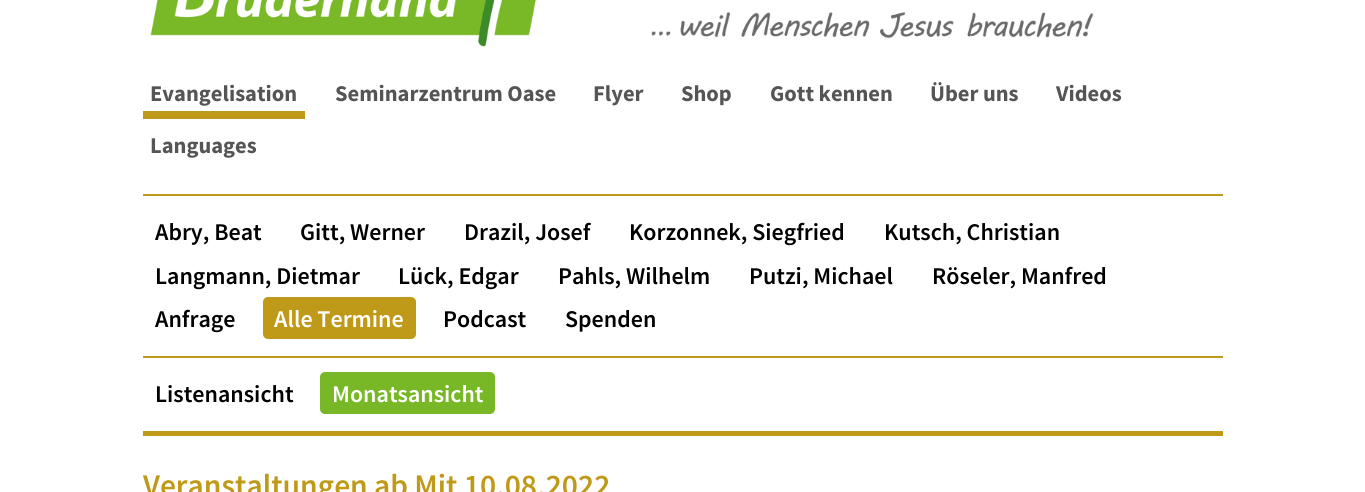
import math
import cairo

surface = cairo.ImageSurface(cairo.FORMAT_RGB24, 1365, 492)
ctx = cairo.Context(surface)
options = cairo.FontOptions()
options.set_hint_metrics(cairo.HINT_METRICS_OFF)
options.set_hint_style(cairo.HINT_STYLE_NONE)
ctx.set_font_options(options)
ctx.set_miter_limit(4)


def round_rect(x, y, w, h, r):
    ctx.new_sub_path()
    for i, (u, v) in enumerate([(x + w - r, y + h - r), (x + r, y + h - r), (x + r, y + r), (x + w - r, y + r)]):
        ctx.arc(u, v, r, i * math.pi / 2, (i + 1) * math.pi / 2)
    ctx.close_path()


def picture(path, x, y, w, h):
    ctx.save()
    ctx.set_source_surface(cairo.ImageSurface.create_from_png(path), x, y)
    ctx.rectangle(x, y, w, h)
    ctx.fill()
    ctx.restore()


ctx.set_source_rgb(1, 1, 1)
ctx.paint()
picture("img1.png", 150, 0, 944, 47)
ctx.set_source_rgb(0.749, 0.6, 0.094)
ctx.rectangle(143, 111, 162, 8)
ctx.fill()
ctx.select_font_face("Source Sans Pro", cairo.FONT_SLANT_NORMAL, cairo.FONT_WEIGHT_BOLD)
ctx.set_font_size(22.5)
ctx.set_source_rgb(0.333, 0.333, 0.333)
ctx.move_to(150, 101)
ctx.show_text("Evangelisation")
ctx.move_to(335, 101)
ctx.show_text("Seminarzentrum Oase")
ctx.move_to(593, 101)
ctx.show_text("Flyer")
ctx.move_to(681, 101)
ctx.show_text("Shop")
ctx.move_to(770, 101)
ctx.show_text("Gott kennen")
ctx.move_to(930, 101)
ctx.show_text("Über uns")
ctx.move_to(1056, 101)
ctx.show_text("Videos")
ctx.move_to(150, 153)
ctx.show_text("Languages")
ctx.set_source_rgb(0.749, 0.6, 0.094)
ctx.rectangle(143, 194, 1080, 2)
ctx.fill()
ctx.select_font_face("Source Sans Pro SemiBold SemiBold")
ctx.set_font_size(24)
ctx.set_source_rgb(0, 0, 0)
ctx.move_to(155, 240)
ctx.show_text("Abry, Beat")
ctx.move_to(300, 240)
ctx.show_text("Gitt, Werner")
ctx.move_to(464, 240)
ctx.show_text("Drazil, Josef")
ctx.move_to(629, 240)
ctx.show_text("Korzonnek, Siegfried")
ctx.move_to(884, 240)
ctx.show_text("Kutsch, Christian")
ctx.move_to(155, 284)
ctx.show_text("Langmann, Dietmar")
ctx.move_to(398, 284)
ctx.show_text("Lück, Edgar")
ctx.move_to(558, 284)
ctx.show_text("Pahls, Wilhelm")
ctx.move_to(749, 284)
ctx.show_text("Putzi, Michael")
ctx.move_to(932, 284)
ctx.show_text("Röseler, Manfred")
ctx.move_to(155, 327)
ctx.show_text("Anfrage")
ctx.set_source_rgb(0.749, 0.6, 0.094)
round_rect(263, 297, 153, 42, 5)
ctx.fill()
ctx.set_source_rgb(1, 1, 1)
ctx.move_to(274, 327)
ctx.show_text("Alle Termine")
ctx.set_source_rgb(0, 0, 0)
ctx.move_to(443, 327)
ctx.show_text("Podcast")
ctx.move_to(565, 327)
ctx.show_text("Spenden")
ctx.set_source_rgb(0.749, 0.6, 0.094)
ctx.rectangle(143, 356, 1080, 2)
ctx.fill()
ctx.set_source_rgb(0, 0, 0)
ctx.move_to(155, 402)
ctx.show_text("Listenansicht")
ctx.set_source_rgb(0.471, 0.722, 0.149)
round_rect(320, 372, 175, 42, 5)
ctx.fill()
ctx.set_source_rgb(1, 1, 1)
ctx.move_to(332, 402)
ctx.show_text("Monatsansicht")
ctx.set_source_rgb(0.749, 0.6, 0.094)
ctx.rectangle(143, 431, 1080, 5)
ctx.fill()
ctx.set_font_size(31.5)
ctx.move_to(143, 496)
ctx.show_text("Veranstaltungen ab Mit 10.08.2022")
surface.write_to_png("page.png")
